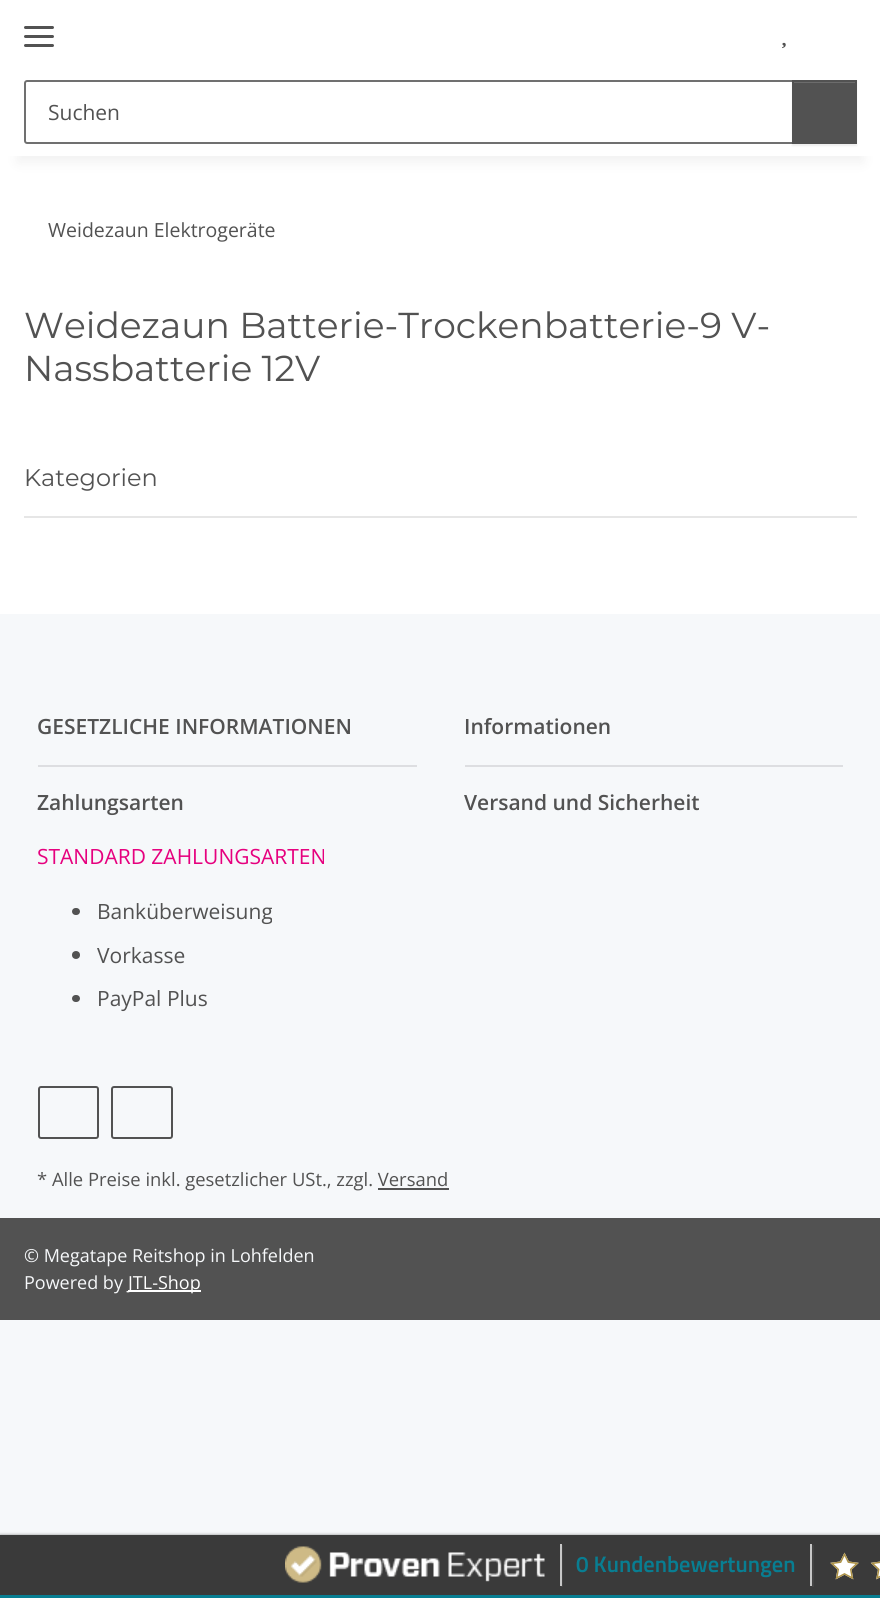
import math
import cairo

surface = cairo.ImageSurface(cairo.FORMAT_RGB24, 880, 1598)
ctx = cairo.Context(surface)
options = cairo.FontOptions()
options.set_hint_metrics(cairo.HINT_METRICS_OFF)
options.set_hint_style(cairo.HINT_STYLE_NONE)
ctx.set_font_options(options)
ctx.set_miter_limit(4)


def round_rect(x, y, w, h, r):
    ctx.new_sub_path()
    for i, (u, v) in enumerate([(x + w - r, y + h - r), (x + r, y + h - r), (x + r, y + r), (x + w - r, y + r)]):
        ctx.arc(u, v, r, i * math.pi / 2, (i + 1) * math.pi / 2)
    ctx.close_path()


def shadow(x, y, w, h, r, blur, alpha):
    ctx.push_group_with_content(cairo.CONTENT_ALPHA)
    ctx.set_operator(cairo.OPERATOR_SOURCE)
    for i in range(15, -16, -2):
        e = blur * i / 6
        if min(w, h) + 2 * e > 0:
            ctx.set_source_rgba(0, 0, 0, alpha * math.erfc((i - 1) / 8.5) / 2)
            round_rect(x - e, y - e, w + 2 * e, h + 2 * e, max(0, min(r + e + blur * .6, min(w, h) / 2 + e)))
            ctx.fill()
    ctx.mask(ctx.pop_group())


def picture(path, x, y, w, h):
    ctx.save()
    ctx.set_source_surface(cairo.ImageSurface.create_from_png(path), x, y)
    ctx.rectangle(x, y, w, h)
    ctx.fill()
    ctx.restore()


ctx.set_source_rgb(0.961, 0.969, 0.98)
ctx.paint()
ctx.set_source_rgb(1, 1, 1)
ctx.rectangle(0, 156, 880, 458)
ctx.fill()
ctx.set_source_rgb(0, 0, 0)
shadow(18, 42, 845, 120, 0, 7, 0.06)
ctx.set_source_rgb(1, 1, 1)
ctx.rectangle(0, 0, 880, 156)
ctx.fill()
ctx.set_source_rgb(0.322, 0.322, 0.322)
round_rect(24, 35, 30, 3, 1.5)
ctx.fill()
round_rect(24, 26, 30, 3, 1.5)
ctx.fill()
round_rect(24, 44, 30, 3, 1.5)
ctx.fill()
picture("img1.png", 782, 42, 4, 7)
ctx.new_path()
ctx.move_to(27, 81)
ctx.line_to(793, 81)
ctx.line_to(793, 143)
ctx.line_to(27, 143)
ctx.curve_to(26, 143, 25, 142, 25, 141)
ctx.line_to(25, 83)
ctx.curve_to(25, 82, 26, 81, 27, 81)
ctx.close_path()
ctx.set_source_rgb(0.439, 0.439, 0.439)
ctx.stroke()
ctx.select_font_face("Open Sans")
ctx.set_font_size(21)
ctx.set_source_rgb(0.322, 0.322, 0.322)
ctx.move_to(48, 120)
ctx.show_text("Suchen")
ctx.set_source_rgb(0, 0, 0)
shadow(792, 81, 65, 65, 0, 1, 0.07)
ctx.set_source_rgb(0.322, 0.322, 0.322)
ctx.rectangle(794, 83, 61, 59)
ctx.fill()
ctx.set_source_rgb(0.424, 0.424, 0.424)
ctx.rectangle(794, 82, 61, 1)
ctx.fill()
ctx.rectangle(793, 81, 63, 62)
ctx.set_source_rgb(0.322, 0.322, 0.322)
ctx.stroke()
ctx.set_font_size(19.5)
ctx.move_to(48, 237)
ctx.show_text("Weidezaun Elektrogeräte")
ctx.select_font_face("Montserrat")
ctx.set_font_size(36)
ctx.move_to(24, 338)
ctx.show_text("Weidezaun Batterie-Trockenbatterie-9 V-")
ctx.move_to(24, 381)
ctx.show_text("Nassbatterie 12V")
ctx.set_font_size(24)
ctx.move_to(24, 486)
ctx.show_text("Kategorien")
ctx.set_source_rgb(0.902, 0.902, 0.902)
ctx.rectangle(24, 516, 833, 2)
ctx.fill()
ctx.set_source_rgb(0.533, 0.533, 0.533)
shadow(0, 1535, 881, 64, 0, 1.5, 1)
ctx.set_source_rgb(0.227, 0.227, 0.227)
ctx.rectangle(0, 1535, 880, 60)
ctx.fill()
picture("img2.png", 285, 1546, 260, 37)
ctx.set_source_rgb(0.267, 0.267, 0.267)
ctx.rectangle(561, 1545, 2, 42)
ctx.fill()
ctx.set_source_rgb(0.78, 0.78, 0.78)
ctx.rectangle(560, 1544, 2, 42)
ctx.fill()
ctx.select_font_face("Titillium Web SemiBold")
ctx.set_font_size(22.5)
ctx.set_source_rgb(0.035, 0.494, 0.573)
ctx.move_to(576, 1572)
ctx.show_text("0 Kundenbewertungen")
ctx.set_source_rgb(0.267, 0.267, 0.267)
ctx.rectangle(812, 1545, 2, 42)
ctx.fill()
ctx.set_source_rgb(0.78, 0.78, 0.78)
ctx.rectangle(810, 1544, 2, 42)
ctx.fill()
picture("img3.png", 830, 1552, 29, 28)
picture("img4.png", 870, 1561, 10, 19)
ctx.set_source_rgb(0.035, 0.494, 0.573)
ctx.rectangle(0, 1595, 880, 3)
ctx.fill()
ctx.select_font_face("Open Sans SemiBold")
ctx.set_font_size(21)
ctx.set_source_rgb(0.322, 0.322, 0.322)
ctx.move_to(37, 734)
ctx.show_text("GESETZLICHE INFORMATIONEN")
ctx.set_source_rgb(0.867, 0.871, 0.882)
ctx.rectangle(38, 765, 379, 2)
ctx.fill()
ctx.set_source_rgb(0.322, 0.322, 0.322)
ctx.move_to(464, 734)
ctx.show_text("Informationen")
ctx.set_source_rgb(0.867, 0.871, 0.882)
ctx.rectangle(465, 765, 378, 2)
ctx.fill()
ctx.set_source_rgb(0.322, 0.322, 0.322)
ctx.move_to(37, 810)
ctx.show_text("Zahlungsarten")
ctx.select_font_face("Open Sans")
ctx.set_source_rgb(0.902, 0, 0.494)
ctx.move_to(37, 864)
ctx.show_text("STANDARD ZAHLUNGSARTEN")
ctx.set_source_rgb(0.322, 0.322, 0.322)
round_rect(72, 908, 8, 7, 3.5)
ctx.fill()
ctx.move_to(97, 919)
ctx.show_text("Banküberweisung")
ctx.new_path()
ctx.arc(76, 955, 4, 0, 2 * math.pi)
ctx.fill()
ctx.move_to(97, 963)
ctx.show_text("Vorkasse")
round_rect(72, 995, 8, 7, 3.5)
ctx.fill()
ctx.move_to(97, 1006)
ctx.show_text("PayPal Plus")
ctx.select_font_face("Open Sans SemiBold")
ctx.move_to(464, 810)
ctx.show_text("Versand und Sicherheit")
round_rect(39, 1087, 59, 51, 2)
ctx.stroke()
round_rect(112, 1087, 60, 51, 2)
ctx.stroke()
ctx.select_font_face("Open Sans")
ctx.set_font_size(18.4)
ctx.move_to(37, 1186)
ctx.show_text("* Alle Preise inkl. gesetzlicher USt., zzgl. Versand")
ctx.rectangle(378, 1188, 71, 2)
ctx.fill()
ctx.rectangle(0, 1218, 880, 102)
ctx.fill()
ctx.set_font_size(18)
ctx.set_source_rgb(0.961, 0.969, 0.98)
ctx.move_to(24, 1262)
ctx.show_text("© Megatape Reitshop in Lohfelden")
ctx.move_to(24, 1289)
ctx.show_text("Powered by")
ctx.set_source_rgb(1, 1, 1)
ctx.rectangle(128, 1290, 73, 2)
ctx.fill()
ctx.move_to(128, 1289)
ctx.show_text("JTL-Shop")
surface.write_to_png("page.png")
